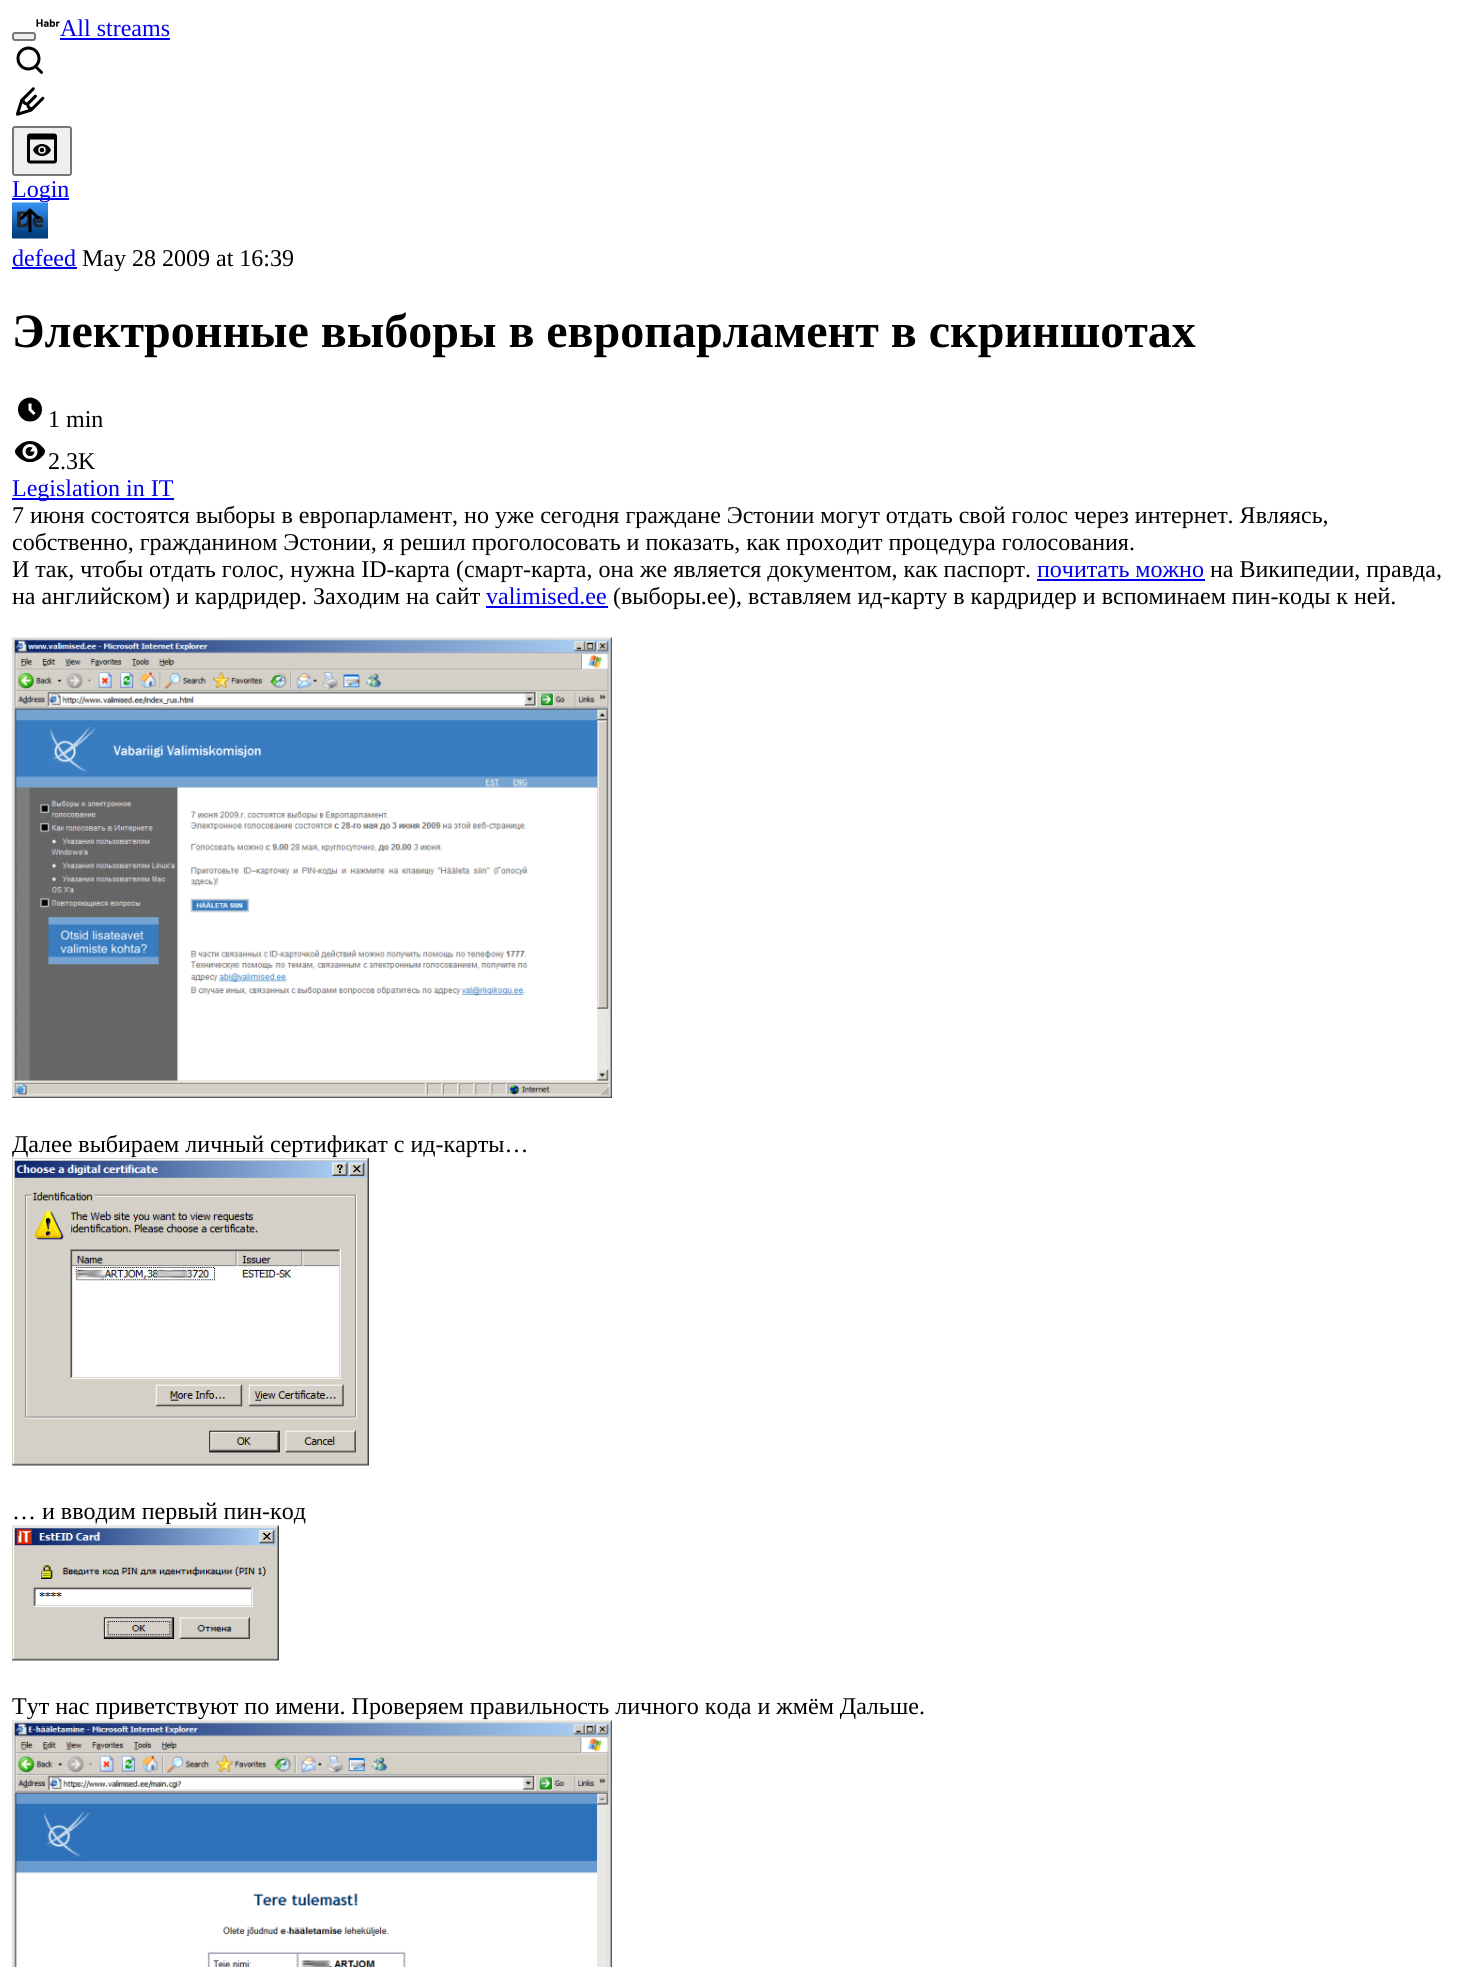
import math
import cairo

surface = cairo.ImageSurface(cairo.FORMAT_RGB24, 1463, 1967)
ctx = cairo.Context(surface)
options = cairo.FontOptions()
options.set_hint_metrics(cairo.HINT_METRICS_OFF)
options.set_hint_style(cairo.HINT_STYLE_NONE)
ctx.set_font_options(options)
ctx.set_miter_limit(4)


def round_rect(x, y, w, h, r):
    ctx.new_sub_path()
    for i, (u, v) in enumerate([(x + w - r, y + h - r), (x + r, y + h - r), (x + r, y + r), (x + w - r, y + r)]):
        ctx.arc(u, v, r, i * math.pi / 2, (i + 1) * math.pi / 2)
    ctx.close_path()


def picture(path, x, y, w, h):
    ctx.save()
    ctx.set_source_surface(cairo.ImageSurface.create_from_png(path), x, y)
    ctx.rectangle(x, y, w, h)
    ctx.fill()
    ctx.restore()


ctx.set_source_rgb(1, 1, 1)
ctx.paint()
ctx.set_source_rgb(0.937, 0.937, 0.937)
round_rect(13, 33, 22, 7, 2)
ctx.fill_preserve()
ctx.set_source_rgb(0.463, 0.463, 0.463)
ctx.stroke()
picture("img1.png", 36, 19, 24, 8)
ctx.select_font_face("Liberation Serif")
ctx.set_font_size(24)
ctx.set_source_rgb(0, 0, 0.933)
ctx.move_to(60, 36)
ctx.show_text("All streams")
ctx.rectangle(60, 38, 110, 2)
ctx.fill()
picture("img2.png", 16, 46, 27, 28)
picture("img3.png", 15, 87, 30, 29)
ctx.set_source_rgb(0.937, 0.937, 0.937)
round_rect(13, 127, 58, 48, 2)
ctx.fill_preserve()
ctx.set_source_rgb(0.463, 0.463, 0.463)
ctx.stroke()
picture("img4.png", 27, 133, 30, 31)
ctx.set_source_rgb(0, 0, 0.933)
ctx.rectangle(12, 198, 57, 2)
ctx.fill()
ctx.move_to(12, 197)
ctx.show_text("Login")
picture("img6.png", 12, 202, 36, 37)
picture("img5.png", 20, 208, 20, 25)
ctx.move_to(12, 266)
ctx.show_text("defeed")
ctx.set_source_rgb(0, 0, 0)
ctx.move_to(82, 266)
ctx.show_text("May 28 2009 at 16:39")
ctx.set_source_rgb(0, 0, 0.933)
ctx.rectangle(12, 267, 65, 2)
ctx.fill()
ctx.select_font_face("Liberation Serif", cairo.FONT_SLANT_NORMAL, cairo.FONT_WEIGHT_BOLD)
ctx.set_font_size(48)
ctx.set_source_rgb(0, 0, 0)
ctx.move_to(12, 347)
ctx.show_text("Электронные выборы в европарламент в скриншотах")
picture("img7.png", 18, 397, 24, 25)
ctx.select_font_face("Liberation Serif")
ctx.set_font_size(24)
ctx.move_to(48, 427)
ctx.show_text("1 min")
picture("img8.png", 15, 441, 30, 21)
ctx.move_to(48, 469)
ctx.show_text("2.3K")
ctx.set_source_rgb(0, 0, 0.933)
ctx.rectangle(12, 498, 162, 2)
ctx.fill()
ctx.move_to(12, 496)
ctx.show_text("Legislation in IT")
ctx.set_source_rgb(0, 0, 0)
ctx.move_to(12, 523)
ctx.show_text("7 июня состоятся выборы в европарламент, но уже сегодня граждане Эстонии могут отдать свой голос через интернет. Являясь,")
ctx.move_to(12, 550)
ctx.show_text("собственно, гражданином Эстонии, я решил проголосовать и показать, как проходит процедура голосования.")
ctx.move_to(12, 577)
ctx.show_text("И так, чтобы отдать голос, нужна ID-карта (смарт-карта, она же является документом, как паспорт.")
ctx.set_source_rgb(0, 0, 0.933)
ctx.move_to(1037, 577)
ctx.show_text("почитать можно")
ctx.rectangle(1037, 579, 168, 2)
ctx.fill()
ctx.set_source_rgb(0, 0, 0)
ctx.move_to(1210, 577)
ctx.show_text("на Википедии, правда,")
ctx.move_to(12, 604)
ctx.show_text("на английском) и кардридер. Заходим на сайт")
ctx.set_source_rgb(0, 0, 0.933)
ctx.move_to(486, 604)
ctx.show_text("valimised.ee")
ctx.rectangle(486, 606, 122, 2)
ctx.fill()
ctx.set_source_rgb(0, 0, 0)
ctx.move_to(613, 604)
ctx.show_text("(выборы.ее), вставляем ид-карту в кардридер и вспоминаем пин-коды к ней.")
picture("img9.png", 12, 637, 600, 461)
ctx.move_to(12, 1152)
ctx.show_text("Далее выбираем личный сертификат с ид-карты…")
picture("img10.png", 12, 1158, 357, 308)
ctx.move_to(12, 1519)
ctx.show_text("… и вводим первый пин-код")
picture("img11.png", 12, 1525, 267, 136)
ctx.move_to(12, 1714)
ctx.show_text("Тут нас приветствуют по имени. Проверяем правильность личного кода и жмём Дальше.")
picture("img12.png", 12, 1720, 600, 247)
surface.write_to_png("page.png")
